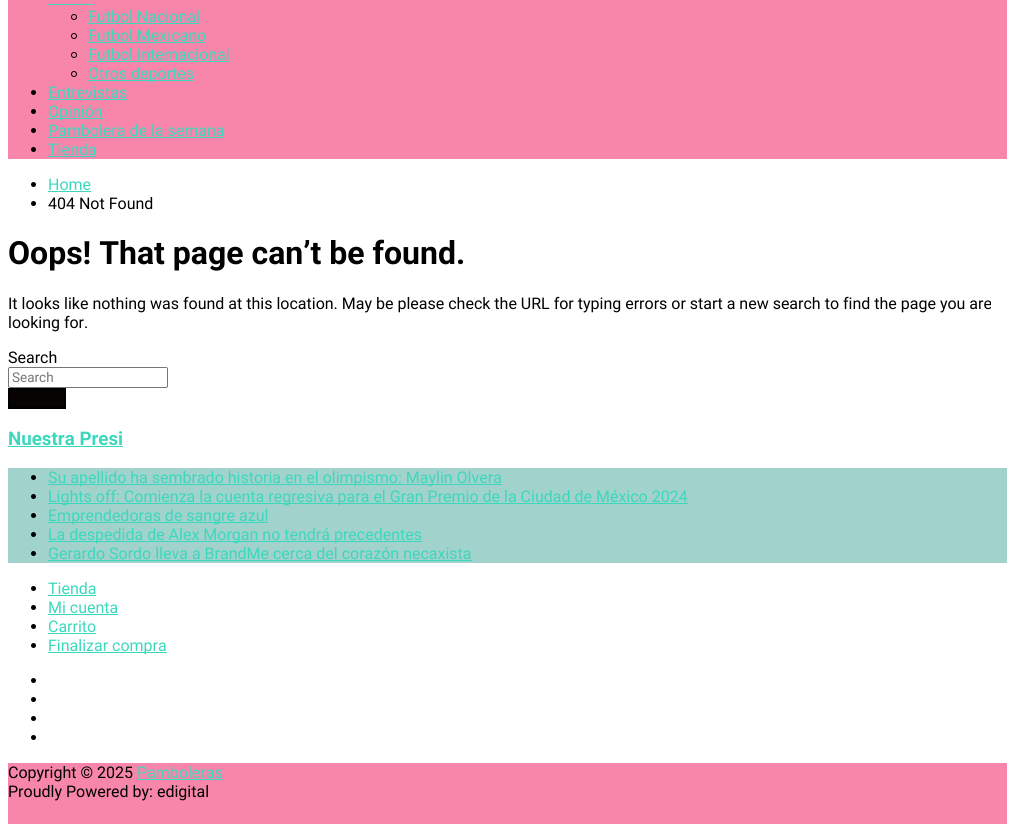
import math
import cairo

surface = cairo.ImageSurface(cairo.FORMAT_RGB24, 1015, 824)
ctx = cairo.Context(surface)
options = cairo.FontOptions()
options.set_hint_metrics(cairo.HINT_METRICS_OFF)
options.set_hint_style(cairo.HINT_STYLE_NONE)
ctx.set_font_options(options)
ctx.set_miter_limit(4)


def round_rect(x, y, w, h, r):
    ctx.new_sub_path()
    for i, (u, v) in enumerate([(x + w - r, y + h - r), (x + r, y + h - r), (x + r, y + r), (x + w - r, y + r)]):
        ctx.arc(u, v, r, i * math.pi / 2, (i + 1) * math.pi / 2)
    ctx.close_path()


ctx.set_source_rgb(1, 1, 1)
ctx.paint()
ctx.set_source_rgb(0.969, 0.525, 0.667)
ctx.rectangle(8, 0, 999, 159)
ctx.fill()
ctx.set_source_rgb(0.235, 0.847, 0.745)
ctx.rectangle(48, 4, 45, 1)
ctx.fill()
ctx.arc(74, 17, 2.5, 0, 2 * math.pi)
ctx.set_source_rgb(0, 0, 0)
ctx.set_line_width(1)
ctx.stroke()
ctx.select_font_face("Roboto")
ctx.set_font_size(16)
ctx.set_source_rgb(0.235, 0.847, 0.745)
ctx.move_to(88, 22)
ctx.show_text("Futbol Nacional")
ctx.rectangle(88, 23, 112, 1)
ctx.fill()
ctx.arc(74, 36, 2.5, 0, 2 * math.pi)
ctx.set_source_rgb(0, 0, 0)
ctx.stroke()
ctx.set_source_rgb(0.235, 0.847, 0.745)
ctx.move_to(88, 41)
ctx.show_text("Futbol Mexicano")
ctx.rectangle(88, 42, 118, 1)
ctx.fill()
ctx.arc(74, 55, 2.5, 0, 2 * math.pi)
ctx.set_source_rgb(0, 0, 0)
ctx.stroke()
ctx.set_source_rgb(0.235, 0.847, 0.745)
ctx.move_to(88, 60)
ctx.show_text("Futbol Internacional")
ctx.rectangle(88, 61, 142, 1)
ctx.fill()
ctx.arc(74, 74, 2.5, 0, 2 * math.pi)
ctx.set_source_rgb(0, 0, 0)
ctx.stroke()
ctx.set_source_rgb(0.235, 0.847, 0.745)
ctx.rectangle(88, 80, 106, 1)
ctx.fill()
ctx.move_to(88, 79)
ctx.show_text("Otros deportes")
ctx.set_source_rgb(0, 0, 0)
ctx.new_path()
ctx.arc(33.5, 92.5, 2.5, 0, 2 * math.pi)
ctx.fill()
ctx.set_source_rgb(0.235, 0.847, 0.745)
ctx.move_to(48, 98)
ctx.show_text("Entrevistas")
ctx.rectangle(48, 99, 79, 1)
ctx.fill()
ctx.set_source_rgb(0, 0, 0)
ctx.arc(33.5, 111.5, 2.5, 0, 2 * math.pi)
ctx.fill()
ctx.set_source_rgb(0.235, 0.847, 0.745)
ctx.rectangle(48, 118, 55, 1)
ctx.fill()
ctx.move_to(48, 117)
ctx.show_text("Opinión")
ctx.set_source_rgb(0, 0, 0)
ctx.new_path()
ctx.arc(33.5, 130.5, 2.5, 0, 2 * math.pi)
ctx.fill()
ctx.set_source_rgb(0.235, 0.847, 0.745)
ctx.move_to(48, 136)
ctx.show_text("Pambolera de la semana")
ctx.rectangle(48, 137, 176, 1)
ctx.fill()
ctx.set_source_rgb(0, 0, 0)
ctx.arc(33.5, 149.5, 2.5, 0, 2 * math.pi)
ctx.fill()
ctx.set_source_rgb(0.235, 0.847, 0.745)
ctx.move_to(48, 155)
ctx.show_text("Tienda")
ctx.rectangle(48, 156, 48, 1)
ctx.fill()
ctx.set_source_rgb(0, 0, 0)
ctx.arc(33.5, 184.5, 2.5, 0, 2 * math.pi)
ctx.fill()
ctx.set_source_rgb(0.235, 0.847, 0.745)
ctx.move_to(48, 190)
ctx.show_text("Home")
ctx.rectangle(48, 191, 43, 1)
ctx.fill()
ctx.set_source_rgb(0, 0, 0)
ctx.arc(33.5, 203.5, 2.5, 0, 2 * math.pi)
ctx.fill()
ctx.move_to(48, 209)
ctx.show_text("404 Not Found")
ctx.select_font_face("Roboto", cairo.FONT_SLANT_NORMAL, cairo.FONT_WEIGHT_BOLD)
ctx.set_font_size(32)
ctx.move_to(8, 264)
ctx.show_text("Oops! That page can’t be found.")
ctx.select_font_face("Roboto")
ctx.set_font_size(16)
ctx.move_to(8, 309)
ctx.show_text("It looks like nothing was found at this location. May be please check the URL for typing errors or start a new search to find the page you are")
ctx.move_to(8, 328)
ctx.show_text("looking for.")
ctx.move_to(8, 363)
ctx.show_text("Search")
round_rect(8.5, 367.5, 159, 20, 1.5)
ctx.set_source_rgb(0.463, 0.463, 0.463)
ctx.stroke()
ctx.set_font_size(13.5)
ctx.set_source_rgb(0.459, 0.459, 0.459)
ctx.move_to(12, 382)
ctx.show_text("Search")
ctx.set_source_rgb(0.027, 0.012, 0.008)
ctx.rectangle(9, 389, 56, 19)
ctx.fill_preserve()
ctx.set_source_rgb(0, 0, 0)
ctx.set_line_width(2)
ctx.stroke()
ctx.select_font_face("Roboto", cairo.FONT_SLANT_NORMAL, cairo.FONT_WEIGHT_BOLD)
ctx.set_font_size(18.75)
ctx.set_source_rgb(0.235, 0.847, 0.745)
ctx.move_to(8, 445)
ctx.show_text("Nuestra Presi")
ctx.rectangle(8, 446, 115, 1)
ctx.fill()
ctx.set_source_rgb(0.631, 0.824, 0.796)
ctx.rectangle(8, 468, 999, 95)
ctx.fill()
ctx.set_source_rgb(0, 0, 0)
ctx.arc(33.5, 477.5, 2.5, 0, 2 * math.pi)
ctx.fill()
ctx.set_source_rgb(0.235, 0.847, 0.745)
ctx.rectangle(48, 484, 454, 1)
ctx.fill()
ctx.select_font_face("Roboto")
ctx.set_font_size(16)
ctx.move_to(48, 483)
ctx.show_text("Su apellido ha sembrado historia en el olimpismo: Maylin Olvera")
ctx.set_source_rgb(0, 0, 0)
ctx.new_path()
ctx.arc(33.5, 496.5, 2.5, 0, 2 * math.pi)
ctx.fill()
ctx.set_source_rgb(0.235, 0.847, 0.745)
ctx.rectangle(48, 503, 640, 1)
ctx.fill()
ctx.move_to(48, 502)
ctx.show_text("Lights off: Comienza la cuenta regresiva para el Gran Premio de la Ciudad de México 2024")
ctx.set_source_rgb(0, 0, 0)
ctx.new_path()
ctx.arc(33.5, 515.5, 2.5, 0, 2 * math.pi)
ctx.fill()
ctx.set_source_rgb(0.235, 0.847, 0.745)
ctx.rectangle(48, 522, 220, 1)
ctx.fill()
ctx.move_to(48, 521)
ctx.show_text("Emprendedoras de sangre azul")
ctx.set_source_rgb(0, 0, 0)
ctx.new_path()
ctx.arc(33.5, 534.5, 2.5, 0, 2 * math.pi)
ctx.fill()
ctx.set_source_rgb(0.235, 0.847, 0.745)
ctx.rectangle(48, 541, 374, 1)
ctx.fill()
ctx.move_to(48, 540)
ctx.show_text("La despedida de Alex Morgan no tendrá precedentes")
ctx.set_source_rgb(0, 0, 0)
ctx.new_path()
ctx.arc(33.5, 553.5, 2.5, 0, 2 * math.pi)
ctx.fill()
ctx.set_source_rgb(0.235, 0.847, 0.745)
ctx.move_to(48, 559)
ctx.show_text("Gerardo Sordo lleva a BrandMe cerca del corazón necaxista")
ctx.rectangle(48, 560, 424, 1)
ctx.fill()
ctx.set_source_rgb(0, 0, 0)
ctx.arc(33.5, 588.5, 2.5, 0, 2 * math.pi)
ctx.fill()
ctx.set_source_rgb(0.235, 0.847, 0.745)
ctx.move_to(48, 594)
ctx.show_text("Tienda")
ctx.rectangle(48, 595, 48, 1)
ctx.fill()
ctx.set_source_rgb(0, 0, 0)
ctx.arc(33.5, 607.5, 2.5, 0, 2 * math.pi)
ctx.fill()
ctx.set_source_rgb(0.235, 0.847, 0.745)
ctx.move_to(48, 613)
ctx.show_text("Mi cuenta")
ctx.rectangle(48, 614, 70, 1)
ctx.fill()
ctx.set_source_rgb(0, 0, 0)
ctx.arc(33.5, 626.5, 2.5, 0, 2 * math.pi)
ctx.fill()
ctx.set_source_rgb(0.235, 0.847, 0.745)
ctx.move_to(48, 632)
ctx.show_text("Carrito")
ctx.rectangle(48, 633, 48, 1)
ctx.fill()
ctx.set_source_rgb(0, 0, 0)
ctx.arc(33.5, 645.5, 2.5, 0, 2 * math.pi)
ctx.fill()
ctx.set_source_rgb(0.235, 0.847, 0.745)
ctx.rectangle(48, 652, 119, 1)
ctx.fill()
ctx.move_to(48, 651)
ctx.show_text("Finalizar compra")
ctx.set_source_rgb(0, 0, 0)
ctx.new_path()
ctx.arc(33.5, 680.5, 2.5, 0, 2 * math.pi)
ctx.fill()
ctx.arc(33.5, 699.5, 2.5, 0, 2 * math.pi)
ctx.fill()
ctx.arc(33.5, 718.5, 2.5, 0, 2 * math.pi)
ctx.fill()
ctx.arc(33.5, 737.5, 2.5, 0, 2 * math.pi)
ctx.fill()
ctx.set_source_rgb(0.969, 0.525, 0.667)
ctx.rectangle(8, 763, 999, 61)
ctx.fill()
ctx.set_source_rgb(0, 0, 0)
ctx.move_to(8, 778)
ctx.show_text("Copyright © 2025")
ctx.set_source_rgb(0.235, 0.847, 0.745)
ctx.move_to(137, 778)
ctx.show_text("Pamboleras")
ctx.rectangle(137, 779, 86, 1)
ctx.fill()
ctx.set_source_rgb(0, 0, 0)
ctx.move_to(8, 797)
ctx.show_text("Proudly Powered by: edigital")
surface.write_to_png("page.png")
